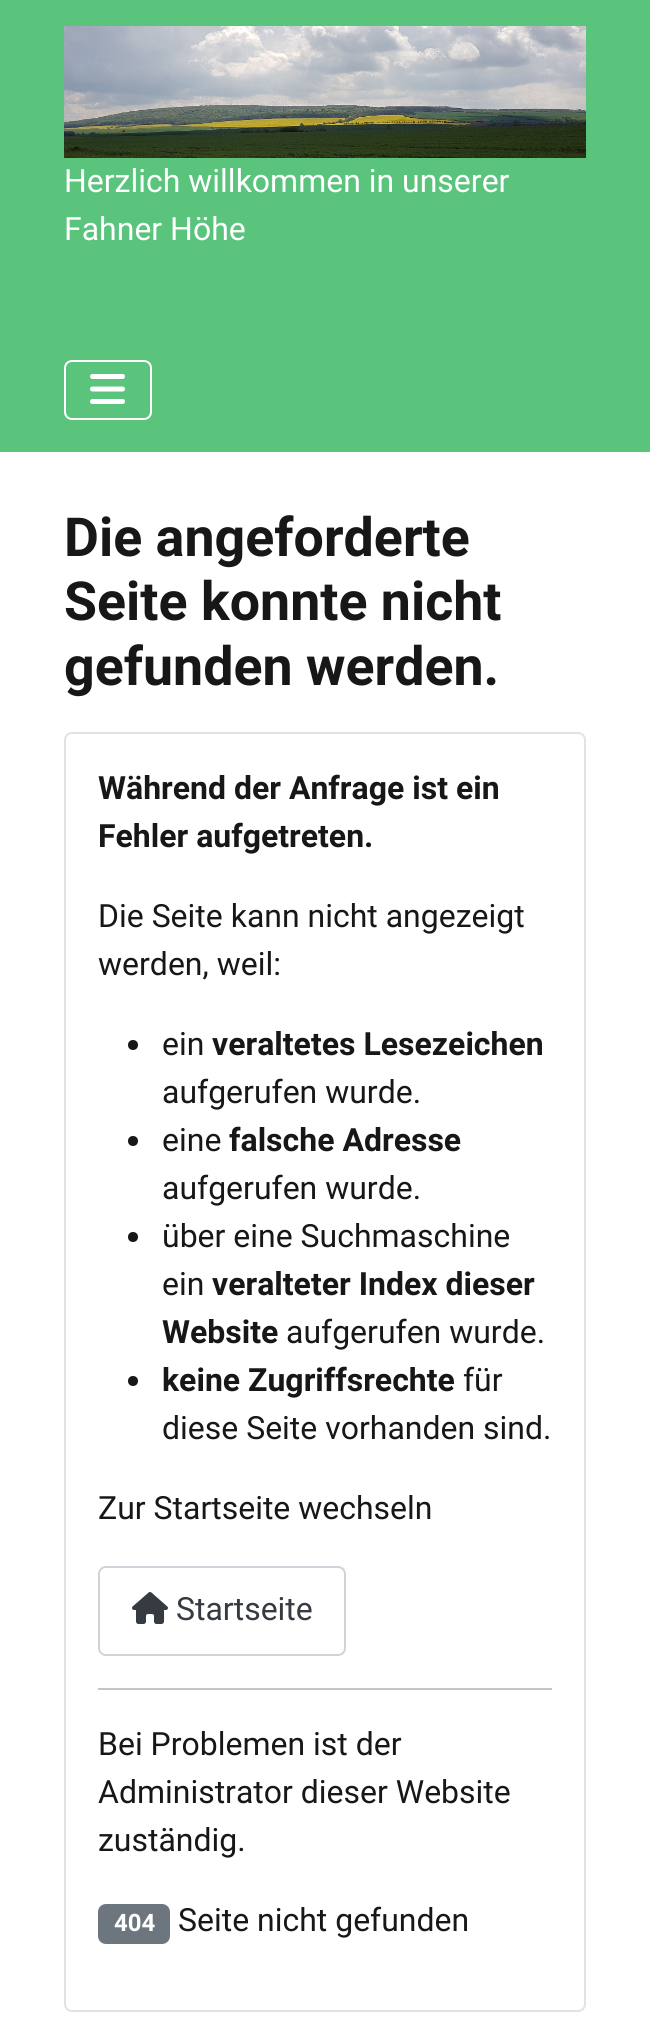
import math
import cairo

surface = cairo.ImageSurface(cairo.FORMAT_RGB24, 650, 2019)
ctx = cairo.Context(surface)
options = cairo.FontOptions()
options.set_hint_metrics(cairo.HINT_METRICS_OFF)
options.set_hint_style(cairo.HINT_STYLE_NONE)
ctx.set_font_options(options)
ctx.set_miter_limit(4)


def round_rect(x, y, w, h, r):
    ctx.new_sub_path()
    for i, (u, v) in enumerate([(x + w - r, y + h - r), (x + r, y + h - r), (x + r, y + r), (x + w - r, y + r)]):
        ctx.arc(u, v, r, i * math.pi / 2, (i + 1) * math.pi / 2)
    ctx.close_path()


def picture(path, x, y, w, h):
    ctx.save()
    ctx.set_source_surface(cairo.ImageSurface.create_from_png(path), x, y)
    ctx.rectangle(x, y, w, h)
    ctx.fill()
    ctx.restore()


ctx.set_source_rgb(1, 1, 1)
ctx.paint()
ctx.set_source_rgb(0.353, 0.769, 0.49)
ctx.rectangle(0, 0, 650, 452)
ctx.fill()
picture("img1.png", 64, 26, 522, 132)
ctx.select_font_face("Roboto")
ctx.set_font_size(32)
ctx.set_source_rgb(1, 1, 1)
ctx.move_to(64, 192)
ctx.show_text("Herzlich willkommen in unserer")
ctx.move_to(64, 240)
ctx.show_text("Fahner Höhe")
round_rect(65, 361, 86, 58, 7)
ctx.stroke()
picture("img2.png", 90, 374, 35, 30)
ctx.select_font_face("Roboto", cairo.FONT_SLANT_NORMAL, cairo.FONT_WEIGHT_BOLD)
ctx.set_font_size(53.75)
ctx.set_source_rgb(0.09, 0.09, 0.09)
ctx.move_to(64, 556)
ctx.show_text("Die angeforderte")
ctx.move_to(64, 620)
ctx.show_text("Seite konnte nicht")
ctx.move_to(64, 685)
ctx.show_text("gefunden werden.")
round_rect(65, 733, 520, 1278, 7)
ctx.set_source_rgb(0.875, 0.89, 0.906)
ctx.stroke()
ctx.set_font_size(32)
ctx.set_source_rgb(0.09, 0.09, 0.09)
ctx.move_to(98, 799)
ctx.show_text("Während der Anfrage ist ein")
ctx.move_to(98, 847)
ctx.show_text("Fehler aufgetreten.")
ctx.select_font_face("Roboto")
ctx.move_to(98, 927)
ctx.show_text("Die Seite kann nicht angezeigt")
ctx.move_to(98, 975)
ctx.show_text("werden, weil:")
ctx.new_path()
ctx.arc(133, 1045, 5, 0, 2 * math.pi)
ctx.fill()
ctx.move_to(162, 1055)
ctx.show_text("ein")
ctx.select_font_face("Roboto", cairo.FONT_SLANT_NORMAL, cairo.FONT_WEIGHT_BOLD)
ctx.move_to(212, 1055)
ctx.show_text("veraltetes Lesezeichen")
ctx.select_font_face("Roboto")
ctx.move_to(162, 1103)
ctx.show_text("aufgerufen wurde.")
ctx.new_path()
ctx.arc(133, 1141, 5, 0, 2 * math.pi)
ctx.fill()
ctx.move_to(162, 1151)
ctx.show_text("eine")
ctx.select_font_face("Roboto", cairo.FONT_SLANT_NORMAL, cairo.FONT_WEIGHT_BOLD)
ctx.move_to(229, 1151)
ctx.show_text("falsche Adresse")
ctx.select_font_face("Roboto")
ctx.move_to(162, 1199)
ctx.show_text("aufgerufen wurde.")
ctx.new_path()
ctx.arc(133, 1237, 5, 0, 2 * math.pi)
ctx.fill()
ctx.move_to(162, 1247)
ctx.show_text("über eine Suchmaschine")
ctx.move_to(162, 1295)
ctx.show_text("ein")
ctx.select_font_face("Roboto", cairo.FONT_SLANT_NORMAL, cairo.FONT_WEIGHT_BOLD)
ctx.move_to(212, 1295)
ctx.show_text("veralteter Index dieser")
ctx.move_to(162, 1343)
ctx.show_text("Website")
ctx.select_font_face("Roboto")
ctx.move_to(286, 1343)
ctx.show_text("aufgerufen wurde.")
ctx.new_path()
ctx.arc(133, 1381, 5, 0, 2 * math.pi)
ctx.fill()
ctx.select_font_face("Roboto", cairo.FONT_SLANT_NORMAL, cairo.FONT_WEIGHT_BOLD)
ctx.move_to(162, 1391)
ctx.show_text("keine Zugriffsrechte")
ctx.select_font_face("Roboto")
ctx.move_to(463, 1391)
ctx.show_text("für")
ctx.move_to(162, 1439)
ctx.show_text("diese Seite vorhanden sind.")
ctx.move_to(98, 1519)
ctx.show_text("Zur Startseite wechseln")
round_rect(99, 1567, 246, 88, 7)
ctx.set_source_rgb(0.808, 0.831, 0.855)
ctx.stroke()
picture("img3.png", 132, 1592, 36, 32)
ctx.set_source_rgb(0.208, 0.231, 0.255)
ctx.move_to(176, 1620)
ctx.show_text("Startseite")
ctx.set_source_rgb(0.773, 0.773, 0.773)
ctx.rectangle(98, 1688, 454, 2)
ctx.fill()
ctx.set_source_rgb(0.09, 0.09, 0.09)
ctx.move_to(98, 1755)
ctx.show_text("Bei Problemen ist der")
ctx.move_to(98, 1803)
ctx.show_text("Administrator dieser Website")
ctx.move_to(98, 1851)
ctx.show_text("zuständig.")
ctx.set_source_rgb(0.427, 0.459, 0.494)
round_rect(98, 1904, 72, 40, 8)
ctx.fill()
ctx.select_font_face("Roboto", cairo.FONT_SLANT_NORMAL, cairo.FONT_WEIGHT_BOLD)
ctx.set_font_size(24)
ctx.set_source_rgb(1, 1, 1)
ctx.move_to(114, 1931)
ctx.show_text("404")
ctx.select_font_face("Roboto")
ctx.set_font_size(32)
ctx.set_source_rgb(0.09, 0.09, 0.09)
ctx.move_to(178, 1931)
ctx.show_text("Seite nicht gefunden")
surface.write_to_png("page.png")
